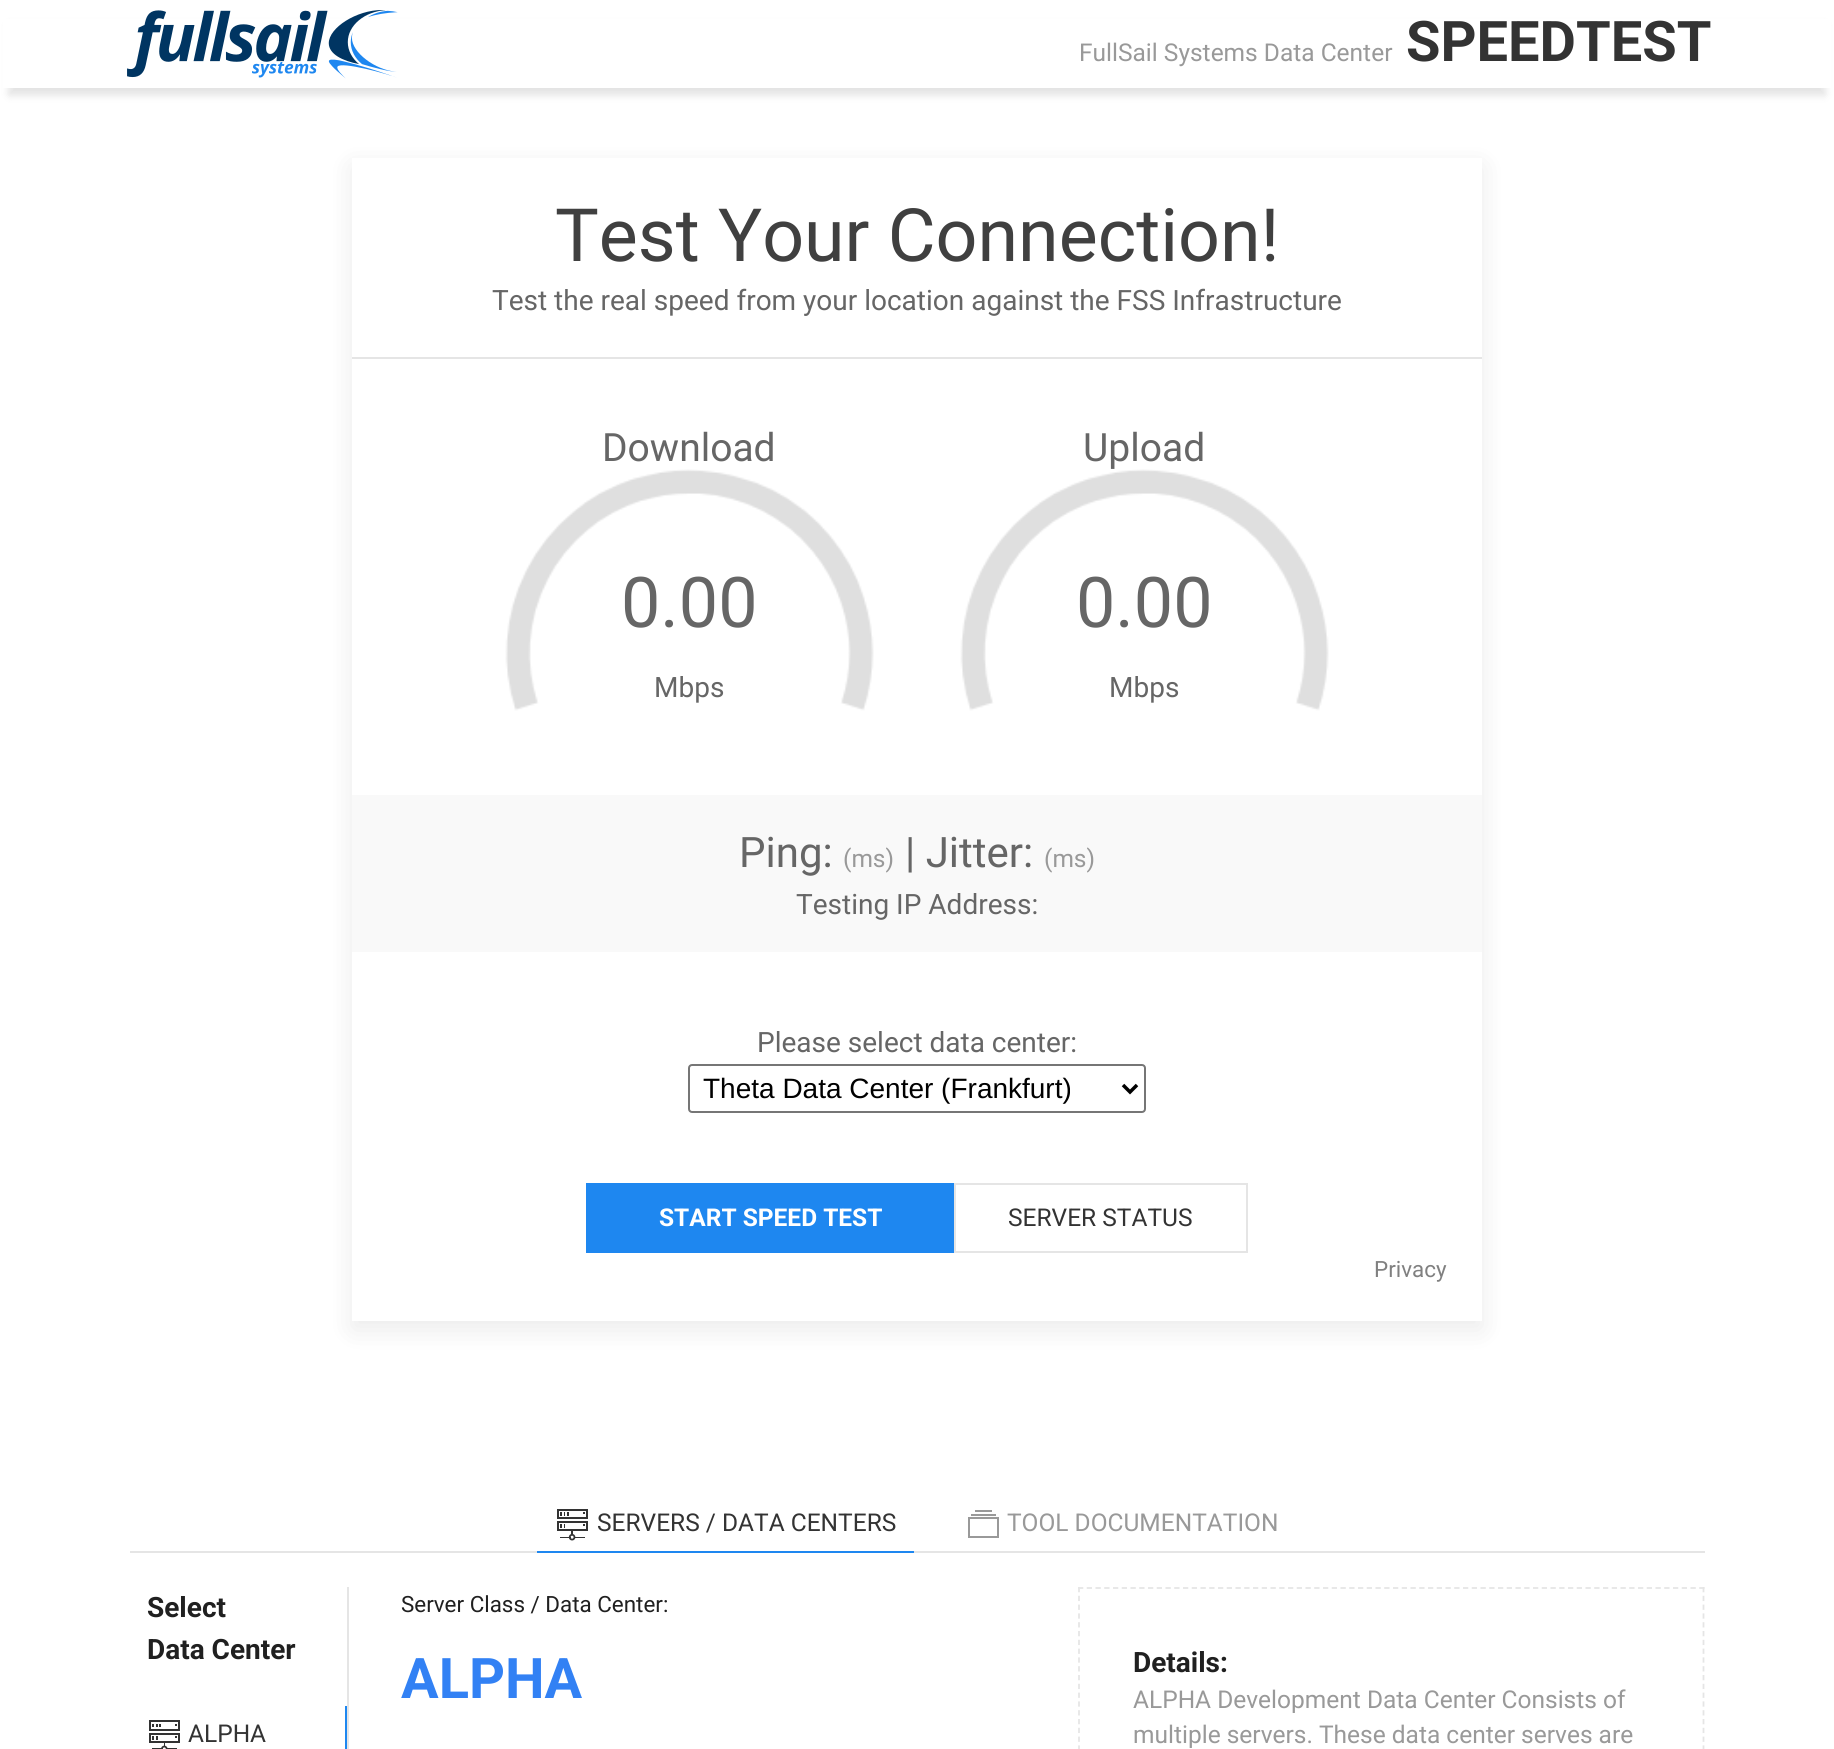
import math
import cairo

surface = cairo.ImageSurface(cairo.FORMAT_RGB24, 1834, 1749)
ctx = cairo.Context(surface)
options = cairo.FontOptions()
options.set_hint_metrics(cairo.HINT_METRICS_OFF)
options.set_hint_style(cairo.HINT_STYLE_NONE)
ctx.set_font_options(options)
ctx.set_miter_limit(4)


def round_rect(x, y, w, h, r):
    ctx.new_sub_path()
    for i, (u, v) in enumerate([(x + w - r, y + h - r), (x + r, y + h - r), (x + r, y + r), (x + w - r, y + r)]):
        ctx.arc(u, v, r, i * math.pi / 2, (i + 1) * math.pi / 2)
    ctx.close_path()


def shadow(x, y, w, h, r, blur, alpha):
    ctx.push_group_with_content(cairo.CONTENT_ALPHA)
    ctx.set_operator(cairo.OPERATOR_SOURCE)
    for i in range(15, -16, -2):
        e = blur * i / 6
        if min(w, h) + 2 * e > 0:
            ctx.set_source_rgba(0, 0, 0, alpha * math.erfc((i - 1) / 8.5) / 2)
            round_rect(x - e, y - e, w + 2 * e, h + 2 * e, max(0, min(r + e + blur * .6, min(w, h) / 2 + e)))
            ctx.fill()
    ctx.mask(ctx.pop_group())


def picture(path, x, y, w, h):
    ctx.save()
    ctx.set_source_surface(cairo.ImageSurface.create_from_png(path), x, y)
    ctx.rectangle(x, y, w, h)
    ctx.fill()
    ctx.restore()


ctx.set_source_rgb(1, 1, 1)
ctx.paint()
ctx.set_source_rgb(0, 0, 0)
shadow(9, 25, 1816, 70, 0, 4.5, 0.12)
ctx.set_source_rgb(1, 1, 1)
ctx.rectangle(3, 19, 1828, 69)
ctx.fill()
picture("img1.png", 127, 10, 271, 69)
ctx.select_font_face("Roboto")
ctx.set_font_size(24.5)
ctx.set_source_rgb(0.6, 0.6, 0.6)
ctx.move_to(1079, 61)
ctx.show_text("FullSail Systems Data Center")
ctx.select_font_face("Roboto", cairo.FONT_SLANT_NORMAL, cairo.FONT_WEIGHT_BOLD)
ctx.set_font_size(56)
ctx.set_source_rgb(0.2, 0.2, 0.2)
ctx.move_to(1406, 61)
ctx.show_text("SPEEDTEST")
ctx.save()
ctx.set_fill_rule(cairo.FILL_RULE_EVEN_ODD)
ctx.new_path()
ctx.move_to(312, 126)
ctx.line_to(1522, 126)
ctx.line_to(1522, 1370)
ctx.line_to(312, 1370)
ctx.close_path()
ctx.move_to(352, 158)
ctx.line_to(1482, 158)
ctx.line_to(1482, 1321)
ctx.line_to(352, 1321)
ctx.close_path()
ctx.clip()
ctx.set_source_rgb(0, 0, 0)
shadow(352, 166, 1130, 1164, 0, 13, 0.08)
ctx.restore()
ctx.select_font_face("Roboto")
ctx.set_font_size(73.5)
ctx.set_source_rgb(0.251, 0.251, 0.251)
ctx.move_to(555, 261)
ctx.show_text("Test Your Connection!")
ctx.set_font_size(28)
ctx.set_source_rgb(0.4, 0.4, 0.4)
ctx.move_to(492, 310)
ctx.show_text("Test the real speed from your location against the FSS Infrastructure")
ctx.set_source_rgb(0.898, 0.898, 0.898)
ctx.rectangle(352, 357, 1130, 2)
ctx.fill()
ctx.set_font_size(39)
ctx.set_source_rgb(0.4, 0.4, 0.4)
ctx.move_to(602, 461)
ctx.show_text("Download")
picture("img2.png", 505, 469, 369, 242)
ctx.set_font_size(70)
ctx.move_to(621, 627)
ctx.show_text("0.00")
ctx.set_font_size(28)
ctx.move_to(654, 697)
ctx.show_text("Mbps")
ctx.set_font_size(39)
ctx.move_to(1083, 461)
ctx.show_text("Upload")
picture("img2.png", 960, 469, 369, 242)
ctx.set_font_size(70)
ctx.move_to(1076, 627)
ctx.show_text("0.00")
ctx.set_font_size(28)
ctx.move_to(1109, 697)
ctx.show_text("Mbps")
ctx.set_source_rgb(0.973, 0.973, 0.973)
ctx.rectangle(352, 795, 1130, 157)
ctx.fill()
ctx.set_font_size(42)
ctx.set_source_rgb(0.4, 0.4, 0.4)
ctx.move_to(739, 867)
ctx.show_text("Ping:")
ctx.set_font_size(24.5)
ctx.set_source_rgb(0.6, 0.6, 0.6)
ctx.move_to(843, 867)
ctx.show_text("(ms)")
ctx.set_font_size(42)
ctx.set_source_rgb(0.4, 0.4, 0.4)
ctx.move_to(905, 867)
ctx.show_text("| Jitter:")
ctx.set_font_size(24.5)
ctx.set_source_rgb(0.6, 0.6, 0.6)
ctx.move_to(1044, 867)
ctx.show_text("(ms)")
ctx.set_font_size(28)
ctx.set_source_rgb(0.4, 0.4, 0.4)
ctx.move_to(796, 914)
ctx.show_text("Testing IP Address:")
ctx.move_to(757, 1052)
ctx.show_text("Please select data center:")
round_rect(689, 1065, 456, 47, 3)
ctx.set_source_rgb(0.463, 0.463, 0.463)
ctx.stroke()
ctx.new_path()
ctx.move_to(1123, 1085)
ctx.line_to(1130, 1092)
ctx.line_to(1137, 1085)
ctx.set_source_rgb(0, 0, 0)
ctx.set_line_width(3.5)
ctx.stroke()
ctx.select_font_face("Liberation Sans")
ctx.move_to(703, 1098)
ctx.show_text("Theta Data Center (Frankfurt)")
ctx.set_source_rgb(0.118, 0.529, 0.941)
ctx.rectangle(586, 1183, 368, 70)
ctx.fill()
ctx.select_font_face("Roboto", cairo.FONT_SLANT_NORMAL, cairo.FONT_WEIGHT_BOLD)
ctx.set_font_size(24.5)
ctx.set_source_rgb(1, 1, 1)
ctx.move_to(659, 1226)
ctx.show_text("START SPEED TEST")
ctx.rectangle(955, 1184, 292, 68)
ctx.set_source_rgb(0.898, 0.898, 0.898)
ctx.set_line_width(2)
ctx.stroke()
ctx.select_font_face("Roboto")
ctx.set_source_rgb(0.2, 0.2, 0.2)
ctx.move_to(1008, 1226)
ctx.show_text("SERVER STATUS")
ctx.set_font_size(22.4)
ctx.set_source_rgb(0.502, 0.502, 0.502)
ctx.move_to(1374, 1277)
ctx.show_text("Privacy")
ctx.set_source_rgb(0.898, 0.898, 0.898)
ctx.rectangle(130, 1551, 1575, 2)
ctx.fill()
ctx.set_source_rgb(0.118, 0.529, 0.941)
ctx.rectangle(537, 1551, 377, 2)
ctx.fill()
picture("img3.png", 557, 1509, 31, 32)
ctx.set_font_size(24.5)
ctx.set_source_rgb(0.2, 0.2, 0.2)
ctx.move_to(597, 1531)
ctx.show_text("SERVERS / DATA CENTERS")
ctx.set_source_rgb(0.6, 0.6, 0.6)
ctx.rectangle(975, 1510, 17, 2)
ctx.fill()
ctx.rectangle(971, 1514, 25, 2)
ctx.fill()
ctx.rectangle(969, 1518, 29, 19)
ctx.stroke()
ctx.move_to(1007, 1531)
ctx.show_text("TOOL DOCUMENTATION")
ctx.set_source_rgb(0.898, 0.898, 0.898)
ctx.rectangle(347, 1587, 2, 162)
ctx.fill()
ctx.select_font_face("Roboto", cairo.FONT_SLANT_NORMAL, cairo.FONT_WEIGHT_BOLD)
ctx.set_font_size(28)
ctx.set_source_rgb(0.125, 0.125, 0.125)
ctx.move_to(147, 1617)
ctx.show_text("Select")
ctx.move_to(147, 1659)
ctx.show_text("Data Center")
ctx.set_source_rgb(0.118, 0.529, 0.941)
ctx.rectangle(345, 1706, 2, 43)
ctx.fill()
picture("img4.png", 149, 1720, 31, 29)
ctx.select_font_face("Roboto")
ctx.set_font_size(24.5)
ctx.set_source_rgb(0.2, 0.2, 0.2)
ctx.move_to(188, 1742)
ctx.show_text("ALPHA")
ctx.set_font_size(22.4)
ctx.set_source_rgb(0.125, 0.125, 0.125)
ctx.move_to(401, 1612)
ctx.show_text("Server Class / Data Center:")
ctx.select_font_face("Roboto", cairo.FONT_SLANT_NORMAL, cairo.FONT_WEIGHT_BOLD)
ctx.set_font_size(56)
ctx.set_source_rgb(0.196, 0.506, 0.957)
ctx.move_to(401, 1698)
ctx.show_text("ALPHA")
ctx.new_path()
ctx.move_to(1078, 1588)
ctx.line_to(1704.5, 1588)
ctx.set_source_rgb(0.898, 0.898, 0.898)
ctx.set_line_width(1.8)
ctx.set_dash([5.25, 3.5])
ctx.stroke()
ctx.new_path()
ctx.move_to(1703.5, 1587)
ctx.line_to(1703.5, 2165)
ctx.set_dash([5.25, 3.55])
ctx.stroke()
ctx.new_path()
ctx.move_to(1079, 1587)
ctx.line_to(1079, 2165)
ctx.stroke()
ctx.set_font_size(28)
ctx.set_source_rgb(0.125, 0.125, 0.125)
ctx.move_to(1133, 1672)
ctx.show_text("Details:")
ctx.select_font_face("Roboto")
ctx.set_font_size(24.5)
ctx.set_source_rgb(0.6, 0.6, 0.6)
ctx.move_to(1133, 1708)
ctx.show_text("ALPHA Development Data Center Consists of")
ctx.move_to(1133, 1743)
ctx.show_text("multiple servers. These data center serves are")
surface.write_to_png("page.png")
